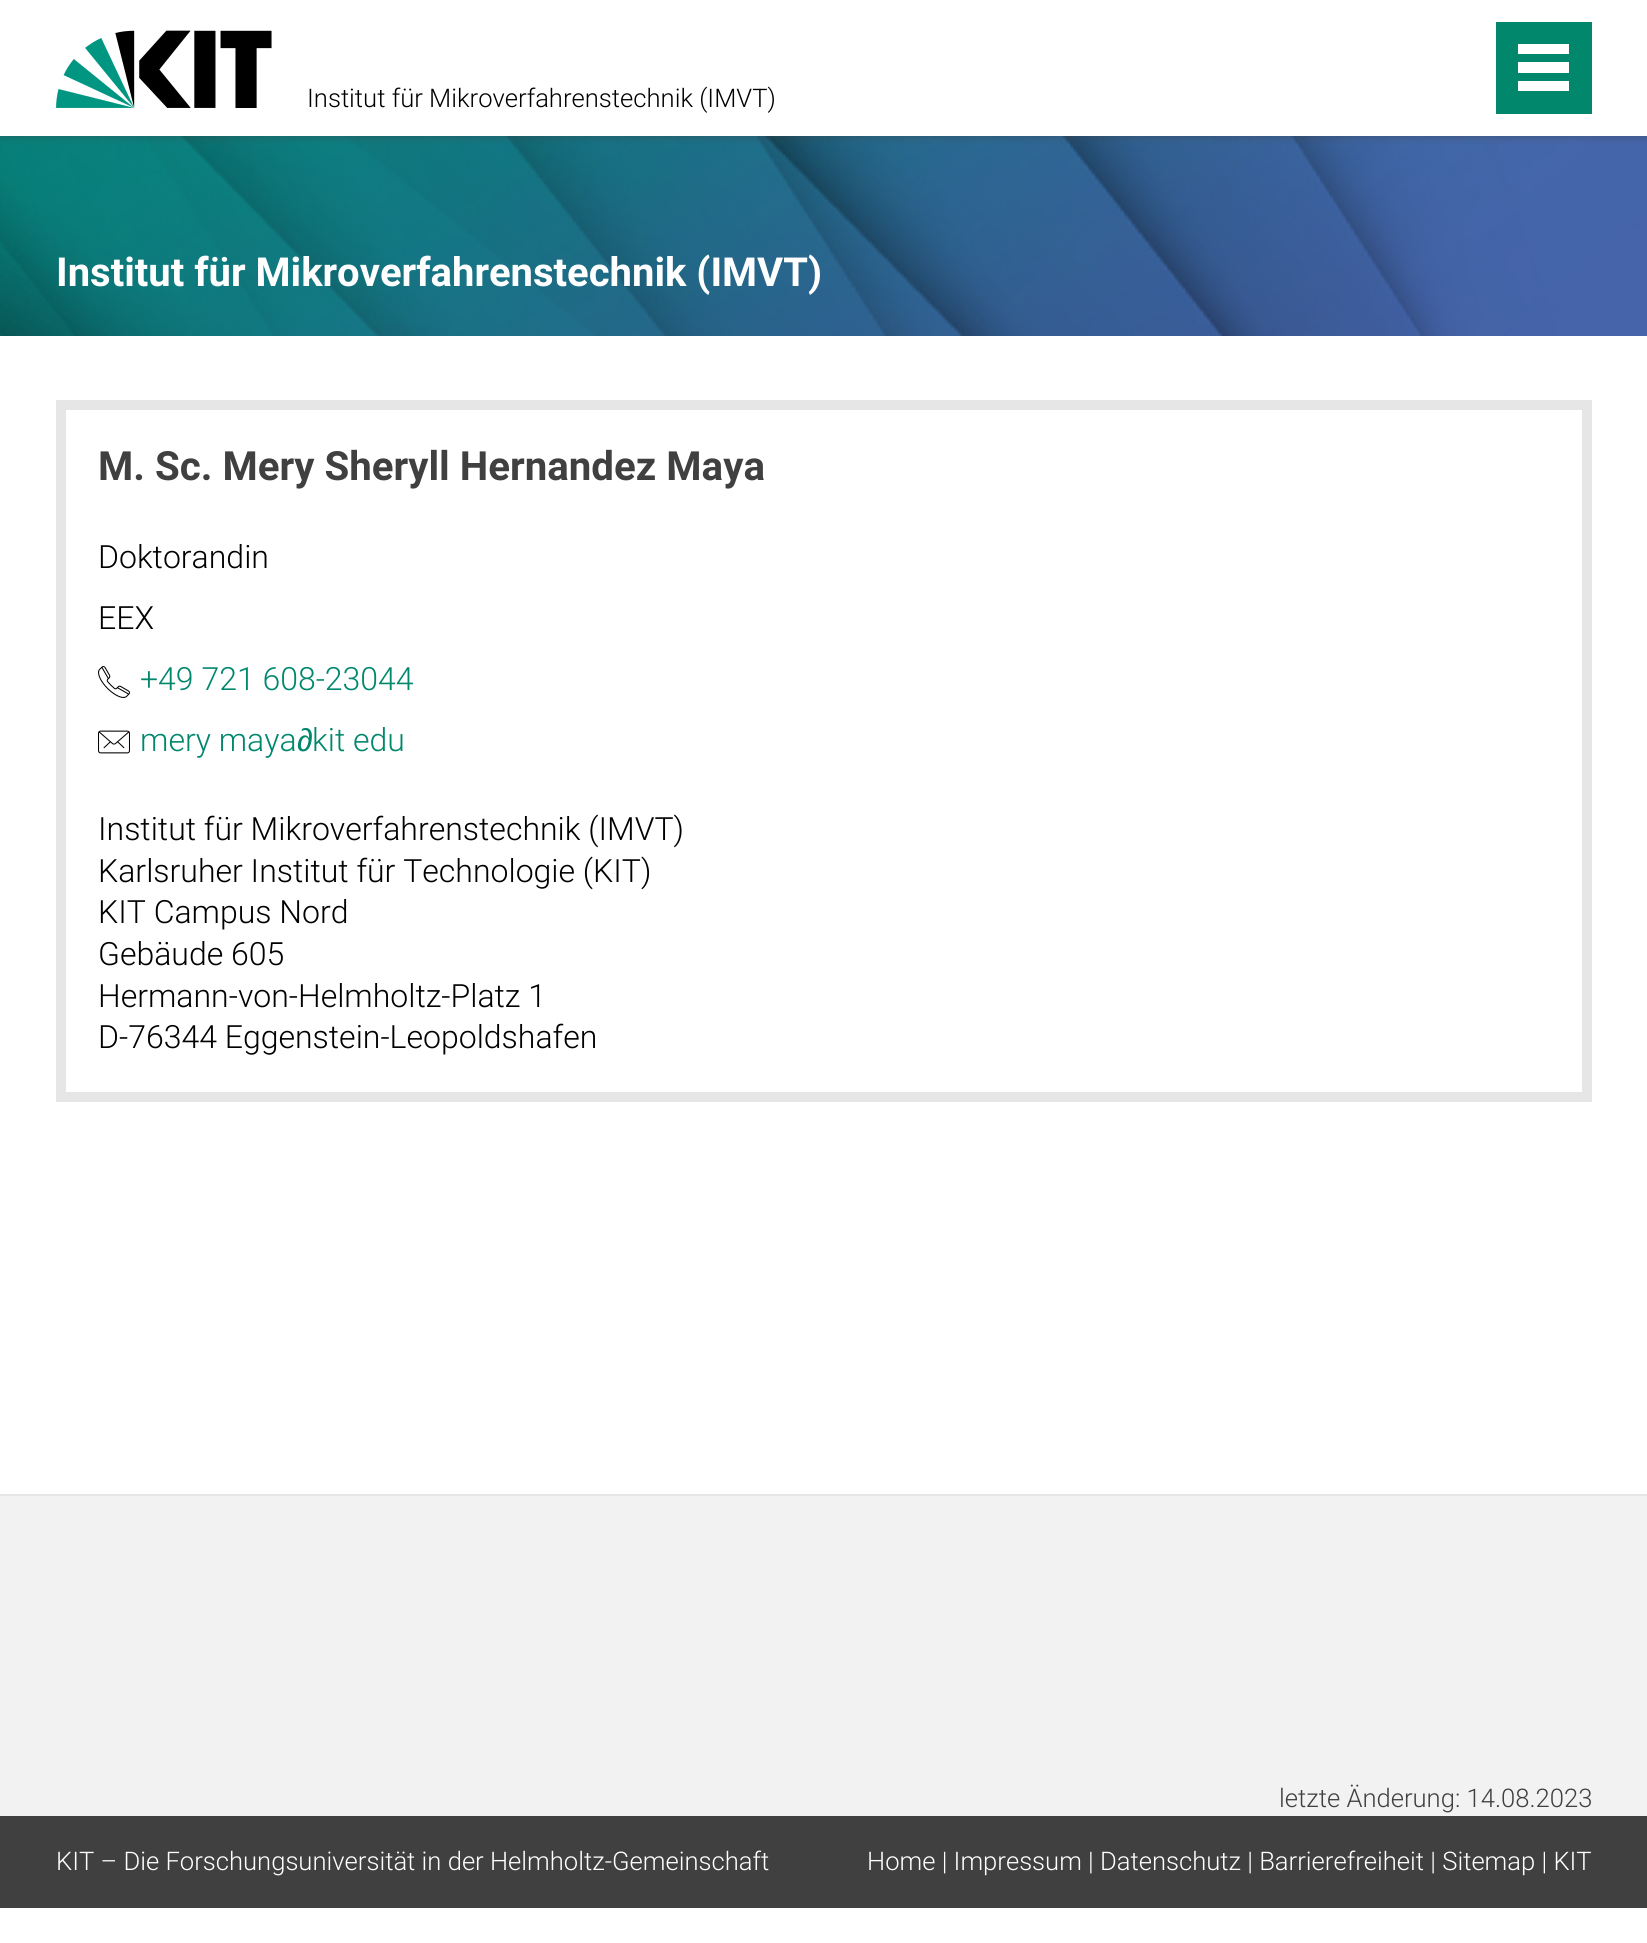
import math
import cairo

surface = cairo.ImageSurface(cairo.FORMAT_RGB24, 1647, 1943)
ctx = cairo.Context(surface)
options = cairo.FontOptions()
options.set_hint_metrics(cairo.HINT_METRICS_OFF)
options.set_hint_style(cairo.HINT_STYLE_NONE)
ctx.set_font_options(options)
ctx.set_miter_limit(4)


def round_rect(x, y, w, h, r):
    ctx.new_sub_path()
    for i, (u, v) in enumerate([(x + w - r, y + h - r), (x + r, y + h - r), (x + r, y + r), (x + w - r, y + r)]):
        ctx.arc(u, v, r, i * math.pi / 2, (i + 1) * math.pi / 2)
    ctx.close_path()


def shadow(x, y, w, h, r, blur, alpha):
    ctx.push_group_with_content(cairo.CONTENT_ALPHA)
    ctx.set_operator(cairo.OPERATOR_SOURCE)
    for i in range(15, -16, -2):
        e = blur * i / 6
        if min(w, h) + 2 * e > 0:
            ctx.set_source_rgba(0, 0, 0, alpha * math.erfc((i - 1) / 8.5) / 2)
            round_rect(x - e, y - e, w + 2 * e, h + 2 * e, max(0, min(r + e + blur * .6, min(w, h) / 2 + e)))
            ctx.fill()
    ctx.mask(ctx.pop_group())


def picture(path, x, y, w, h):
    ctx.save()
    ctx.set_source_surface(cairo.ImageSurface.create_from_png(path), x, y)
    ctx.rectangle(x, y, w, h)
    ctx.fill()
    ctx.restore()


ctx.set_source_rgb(1, 1, 1)
ctx.paint()
picture("img2.png", 0, 136, 1647, 200)
ctx.save()
ctx.rectangle(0, 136, 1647, 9)
ctx.clip()
ctx.set_source_rgb(0.251, 0.251, 0.251)
shadow(0, 0, 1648, 136, 0, 5, 0.5)
ctx.restore()
picture("img1.png", 56, 30, 216, 78)
ctx.select_font_face("Roboto Light")
ctx.set_font_size(25.6)
ctx.set_source_rgb(0, 0, 0)
ctx.move_to(307, 107)
ctx.show_text("Institut für Mikroverfahrenstechnik (IMVT)")
ctx.set_source_rgb(0, 0.529, 0.424)
ctx.rectangle(1496, 22, 96, 92)
ctx.fill()
ctx.set_source_rgb(1, 1, 1)
ctx.rectangle(1518, 81, 51, 10)
ctx.fill()
ctx.rectangle(1518, 62, 51, 11)
ctx.fill()
ctx.rectangle(1518, 44, 51, 10)
ctx.fill()
ctx.select_font_face("Roboto", cairo.FONT_SLANT_NORMAL, cairo.FONT_WEIGHT_BOLD)
ctx.set_font_size(40)
ctx.move_to(56, 286)
ctx.show_text("Institut für Mikroverfahrenstechnik (IMVT)")
ctx.rectangle(61, 405, 1526, 692)
ctx.set_source_rgb(0.902, 0.902, 0.902)
ctx.set_line_width(10)
ctx.stroke()
ctx.set_font_size(40.25)
ctx.set_source_rgb(0.251, 0.251, 0.251)
ctx.move_to(98, 480)
ctx.show_text("M. Sc. Mery Sheryll Hernandez Maya")
ctx.select_font_face("Roboto Light")
ctx.set_font_size(32)
ctx.set_source_rgb(0, 0, 0)
ctx.move_to(98, 568)
ctx.show_text("Doktorandin")
ctx.move_to(98, 629)
ctx.show_text("EEX")
picture("img3.png", 98, 666, 32, 32)
ctx.set_source_rgb(0, 0.529, 0.424)
ctx.move_to(140, 690)
ctx.show_text("+49 721 608-23044")
picture("img4.png", 98, 730, 32, 24)
ctx.move_to(140, 751)
ctx.show_text("mery maya")
ctx.select_font_face("Liberation Sans")
ctx.move_to(297, 751)
ctx.show_text("∂")
ctx.select_font_face("Roboto Light")
ctx.move_to(312, 751)
ctx.show_text("kit edu")
ctx.set_source_rgb(0, 0, 0)
ctx.move_to(98, 840)
ctx.show_text("Institut für Mikroverfahrenstechnik (IMVT)")
ctx.move_to(98, 882)
ctx.show_text("Karlsruher Institut für Technologie (KIT)")
ctx.move_to(98, 923)
ctx.show_text("KIT Campus Nord")
ctx.move_to(98, 965)
ctx.show_text("Gebäude 605")
ctx.move_to(98, 1007)
ctx.show_text("Hermann-von-Helmholtz-Platz 1")
ctx.move_to(98, 1048)
ctx.show_text("D-76344 Eggenstein-Leopoldshafen")
ctx.set_source_rgb(0.949, 0.949, 0.949)
ctx.rectangle(0, 1496, 1647, 320)
ctx.fill()
ctx.set_source_rgb(0.902, 0.902, 0.902)
ctx.rectangle(0, 1494, 1647, 2)
ctx.fill()
ctx.set_font_size(25.6)
ctx.set_source_rgb(0.251, 0.251, 0.251)
ctx.move_to(1279, 1807)
ctx.show_text("letzte Änderung: 14.08.2023")
ctx.rectangle(0, 1816, 1647, 92)
ctx.fill()
ctx.set_source_rgb(1, 1, 1)
ctx.move_to(56, 1870)
ctx.show_text("KIT – Die Forschungsuniversität in der Helmholtz-Gemeinschaft")
ctx.move_to(867, 1870)
ctx.show_text("Home | Impressum | Datenschutz | Barrierefreiheit | Sitemap | KIT")
surface.write_to_png("page.png")
